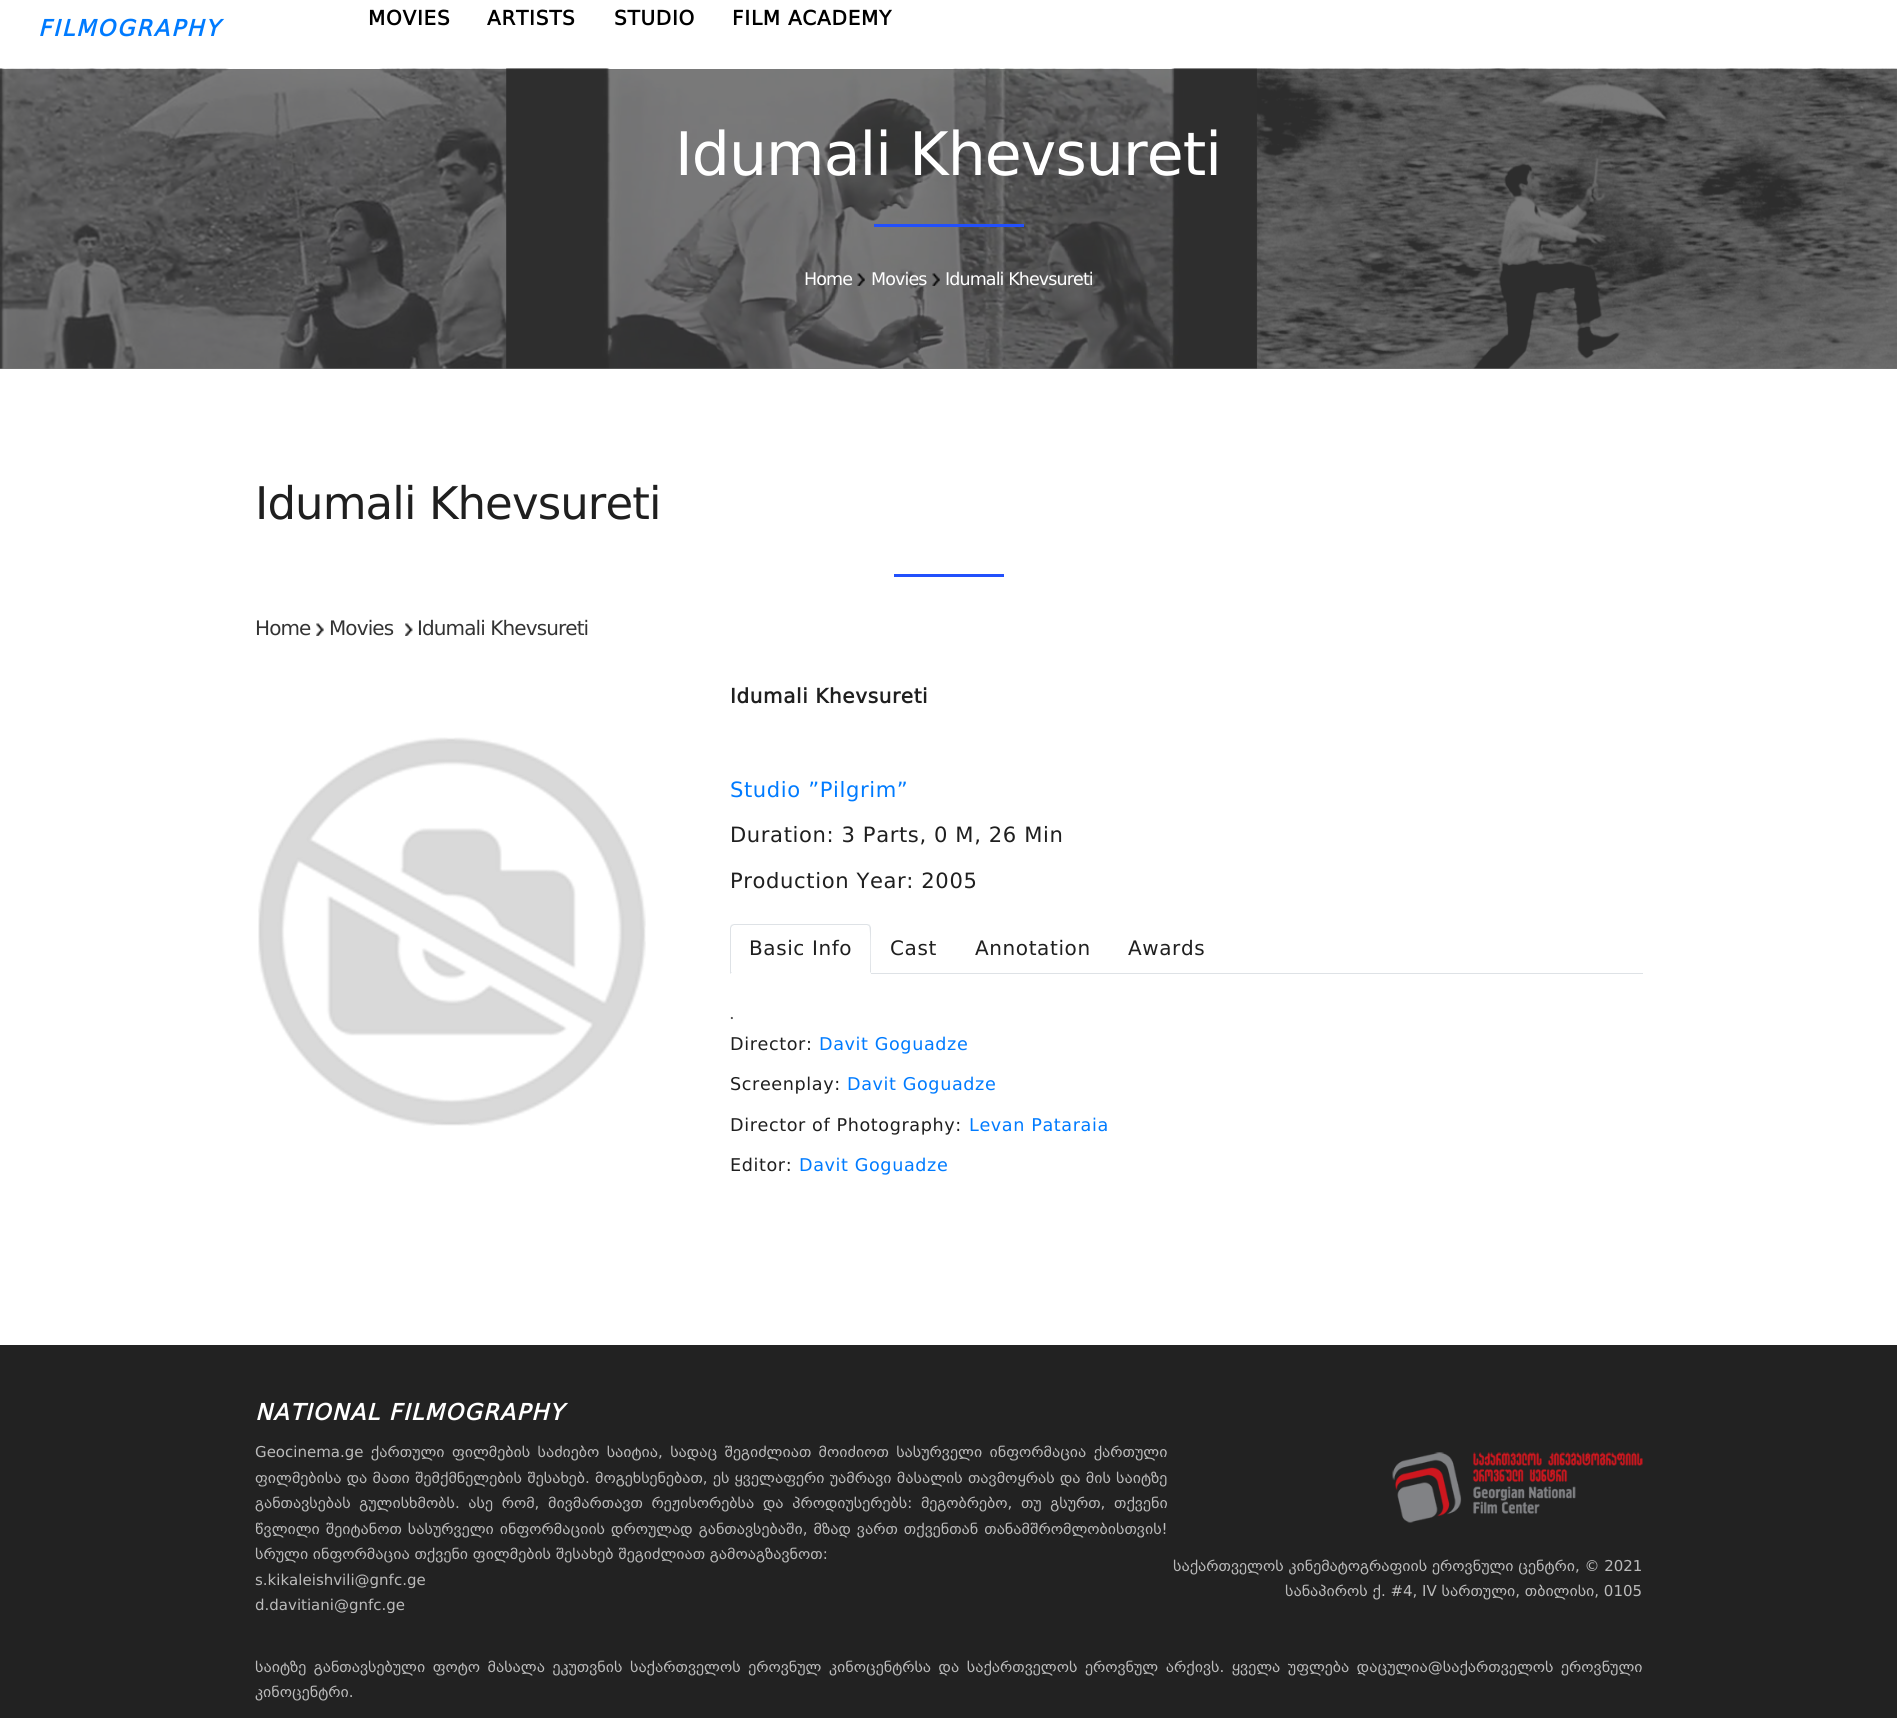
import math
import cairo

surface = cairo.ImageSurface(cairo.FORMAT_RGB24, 1897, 1718)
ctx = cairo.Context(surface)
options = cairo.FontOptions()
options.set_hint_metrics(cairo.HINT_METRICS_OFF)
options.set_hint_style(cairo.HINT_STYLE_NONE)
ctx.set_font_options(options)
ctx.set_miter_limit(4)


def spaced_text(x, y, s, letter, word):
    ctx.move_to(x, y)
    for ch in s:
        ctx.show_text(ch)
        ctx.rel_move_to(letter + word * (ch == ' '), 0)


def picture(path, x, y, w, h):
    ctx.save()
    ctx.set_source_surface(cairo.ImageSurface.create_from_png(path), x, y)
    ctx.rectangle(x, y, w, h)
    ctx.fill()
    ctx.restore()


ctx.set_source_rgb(1, 1, 1)
ctx.paint()
ctx.set_source_rgb(0.475, 0.475, 0.475)
ctx.rectangle(0, 69, 1897, 300)
ctx.fill()
ctx.select_font_face("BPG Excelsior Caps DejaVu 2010", cairo.FONT_SLANT_ITALIC, cairo.FONT_WEIGHT_BOLD)
ctx.set_font_size(22.5)
ctx.set_source_rgb(0, 0.482, 1)
spaced_text(38, 36, "FILMOGRAPHY", 1.9, 0)
ctx.select_font_face("BPG Excelsior Caps DejaVu 2010", cairo.FONT_SLANT_NORMAL, cairo.FONT_WEIGHT_BOLD)
ctx.set_font_size(20)
ctx.set_source_rgb(0, 0, 0)
spaced_text(368, 25, "MOVIES", 0.75, 0)
spaced_text(487, 25, "ARTISTS", 0.75, 0)
spaced_text(614, 25, "STUDIO", 0.75, 0)
spaced_text(732, 25, "FILM ACADEMY", 0.75, 0)
picture("img1.png", 0, 68, 1897, 301)
ctx.select_font_face("BPG Excelsior Caps DejaVu 2010")
ctx.set_font_size(60)
ctx.set_source_rgb(1, 1, 1)
spaced_text(675, 175, "Idumali Khevsureti", -0.9, 0)
ctx.set_source_rgb(0.133, 0.314, 0.988)
ctx.rectangle(874, 224, 150, 3)
ctx.fill()
ctx.set_font_size(17.5)
ctx.set_source_rgb(1, 1, 1)
spaced_text(804, 285, "Home", -0.9, 0)
picture("img2.png", 857, 273, 8, 13)
spaced_text(871, 285, "Movies", -0.9, 0)
picture("img3.png", 932, 273, 8, 13)
spaced_text(945, 285, "Idumali Khevsureti", -0.9, 0)
ctx.set_font_size(45)
ctx.set_source_rgb(0.122, 0.122, 0.122)
spaced_text(255, 519, "Idumali Khevsureti", -0.9, 0)
ctx.set_source_rgb(0.133, 0.314, 0.988)
ctx.rectangle(894, 574, 110, 3)
ctx.fill()
ctx.set_font_size(20)
ctx.set_source_rgb(0.2, 0.2, 0.2)
spaced_text(255, 635, "Home", -0.9, 0)
picture("img4.png", 316, 623, 8, 13)
spaced_text(329, 635, "Movies", -0.9, 0)
picture("img5.png", 405, 623, 8, 13)
spaced_text(417, 635, "Idumali Khevsureti", -0.9, 0)
picture("img6.png", 258, 737, 388, 389)
ctx.select_font_face("BPG Excelsior Caps DejaVu 2010", cairo.FONT_SLANT_NORMAL, cairo.FONT_WEIGHT_BOLD)
ctx.set_source_rgb(0.122, 0.122, 0.122)
spaced_text(730, 703, "Idumali Khevsureti", 0.6, 0)
ctx.select_font_face("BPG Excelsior")
ctx.set_font_size(21.1)
ctx.set_source_rgb(0, 0.482, 1)
spaced_text(730, 797, "Studio ”Pilgrim”", 0.6, 0)
ctx.set_source_rgb(0.122, 0.122, 0.122)
spaced_text(730, 842, "Duration: 3 Parts, 0 M, 26 Min", 0.6, 0)
spaced_text(730, 888, "Production Year: 2005", 0.6, 0)
ctx.set_source_rgb(0.871, 0.886, 0.902)
ctx.rectangle(871, 973, 772, 1)
ctx.fill()
ctx.new_path()
ctx.move_to(734, 924)
ctx.line_to(731, 925)
ctx.line_to(732, 926)
ctx.line_to(734, 925)
ctx.line_to(867, 925)
ctx.line_to(869, 926)
ctx.line_to(870, 925)
ctx.line_to(867, 924)
ctx.close_path()
ctx.fill()
ctx.new_path()
ctx.move_to(871, 974)
ctx.line_to(871, 928)
ctx.curve_to(871, 927, 870, 926, 870, 925)
ctx.line_to(869, 926)
ctx.curve_to(871, 928, 870, 967, 870, 972)
ctx.close_path()
ctx.fill()
ctx.set_source_rgb(1, 1, 1)
ctx.new_path()
ctx.move_to(871, 974)
ctx.line_to(730, 974)
ctx.line_to(732, 972)
ctx.line_to(870, 972)
ctx.close_path()
ctx.fill()
ctx.set_source_rgb(0.871, 0.886, 0.902)
ctx.new_path()
ctx.move_to(730, 974)
ctx.line_to(732, 972)
ctx.line_to(731, 972)
ctx.line_to(731, 928)
ctx.line_to(732, 926)
ctx.line_to(731, 925)
ctx.line_to(730, 928)
ctx.close_path()
ctx.fill()
ctx.select_font_face("BPG Excelsior Caps DejaVu 2010")
ctx.set_font_size(20)
ctx.set_source_rgb(0.122, 0.122, 0.122)
spaced_text(749, 955, "Basic Info", 0.6, 0)
spaced_text(890, 955, "Cast", 0.6, 0)
spaced_text(975, 955, "Annotation", 0.6, 0)
spaced_text(1128, 955, "Awards", 0.6, 0)
ctx.select_font_face("Poppins")
ctx.set_font_size(17.6)
ctx.set_source_rgb(0.282, 0.282, 0.282)
ctx.move_to(730, 1019)
ctx.show_text(".")
ctx.select_font_face("BPG Excelsior")
ctx.set_source_rgb(0.122, 0.122, 0.122)
spaced_text(730, 1050, "Director:", 0.6, 0)
ctx.set_source_rgb(0, 0.482, 1)
spaced_text(819, 1050, "Davit Goguadze", 0.6, 0)
ctx.set_source_rgb(0.122, 0.122, 0.122)
spaced_text(730, 1090, "Screenplay:", 0.6, 0)
ctx.set_source_rgb(0, 0.482, 1)
spaced_text(847, 1090, "Davit Goguadze", 0.6, 0)
ctx.set_source_rgb(0.122, 0.122, 0.122)
spaced_text(730, 1131, "Director of Photography:", 0.6, 0)
ctx.set_source_rgb(0, 0.482, 1)
spaced_text(969, 1131, "Levan Pataraia", 0.6, 0)
ctx.set_source_rgb(0.122, 0.122, 0.122)
spaced_text(730, 1171, "Editor:", 0.6, 0)
ctx.set_source_rgb(0, 0.482, 1)
spaced_text(799, 1171, "Davit Goguadze", 0.6, 0)
ctx.set_source_rgb(0.133, 0.133, 0.133)
ctx.rectangle(0, 1345, 1897, 373)
ctx.fill()
ctx.select_font_face("BPG Excelsior Caps DejaVu 2010", cairo.FONT_SLANT_ITALIC, cairo.FONT_WEIGHT_BOLD)
ctx.set_font_size(22.5)
ctx.set_source_rgb(1, 1, 1)
spaced_text(255, 1420, "NATIONAL FILMOGRAPHY", 1.25, 0)
ctx.select_font_face("BPG Excelsior")
ctx.set_font_size(15)
ctx.set_source_rgb(0.733, 0.733, 0.733)
spaced_text(255, 1457, "Geocinema.ge ქართული ფილმების საძიებო საიტია, სადაც შეგიძლიათ მოიძიოთ სასურველი ინფორმაცია ქართული", 0, 2.6)
spaced_text(255, 1483, "ფილმებისა და მათი შემქმნელების შესახებ. მოგეხსენებათ, ეს ყველაფერი უამრავი მასალის თავმოყრას და მის საიტზე", 0, 0.5)
spaced_text(255, 1508, "განთავსებას გულისხმობს. ასე რომ, მივმართავთ რეჟისორებსა და პროდიუსერებს: მეგობრებო, თუ გსურთ, თქვენი", 0, 3.9)
spaced_text(255, 1534, "წვლილი შეიტანოთ სასურველი ინფორმაციის დროულად განთავსებაში, მზად ვართ თქვენთან თანამშრომლობისთვის!", 0, 1.25)
ctx.move_to(255, 1559)
ctx.show_text("სრული ინფორმაცია თქვენი ფილმების შესახებ შეგიძლიათ გამოაგზავნოთ:")
ctx.move_to(255, 1585)
ctx.show_text("s.kikaleishvili@gnfc.ge")
ctx.move_to(255, 1610)
ctx.show_text("d.davitiani@gnfc.ge")
picture("img7.png", 1392, 1452, 251, 71)
ctx.move_to(1173, 1571)
ctx.show_text("საქართველოს კინემატოგრაფიის ეროვნული ცენტრი, © 2021")
ctx.move_to(1285, 1596)
ctx.show_text("სანაპიროს ქ. #4, IV სართული, თბილისი, 0105")
spaced_text(255, 1672, "საიტზე განთავსებული ფოტო მასალა ეკუთვნის საქართველოს ეროვნულ კინოცენტრსა და საქართველოს ეროვნულ არქივს. ყველა უფლება დაცულია@საქართველოს ეროვნული", 0, 2.75)
ctx.move_to(255, 1697)
ctx.show_text("კინოცენტრი.")
surface.write_to_png("page.png")
